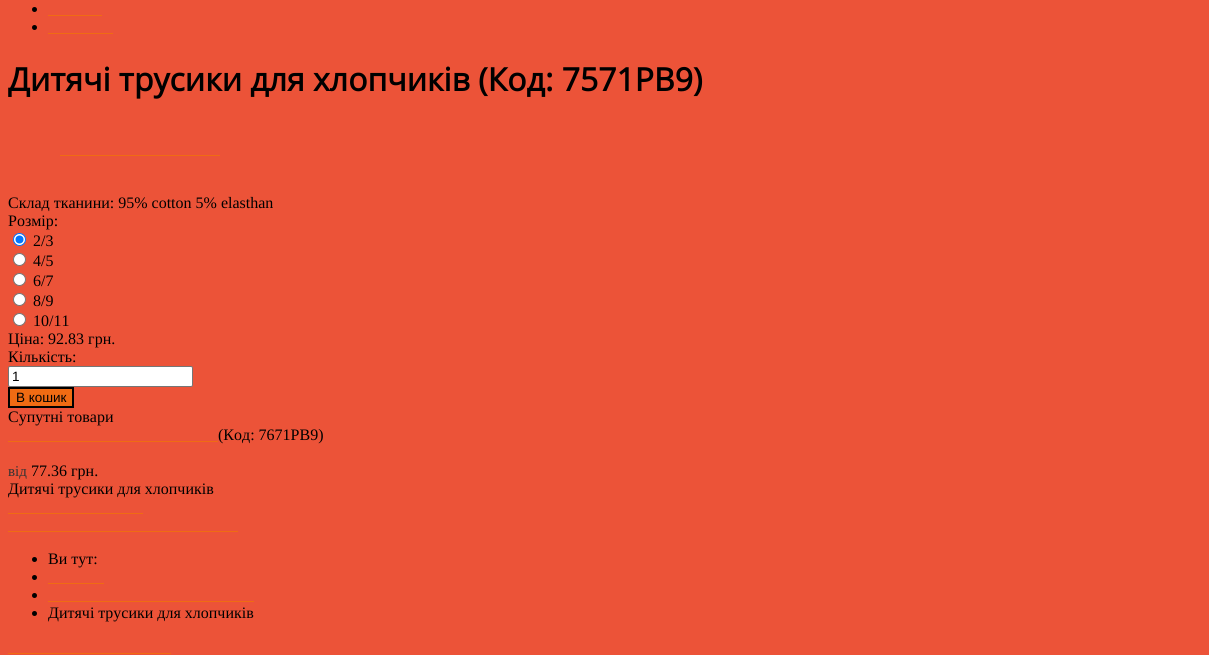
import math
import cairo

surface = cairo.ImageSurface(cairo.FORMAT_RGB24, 1209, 655)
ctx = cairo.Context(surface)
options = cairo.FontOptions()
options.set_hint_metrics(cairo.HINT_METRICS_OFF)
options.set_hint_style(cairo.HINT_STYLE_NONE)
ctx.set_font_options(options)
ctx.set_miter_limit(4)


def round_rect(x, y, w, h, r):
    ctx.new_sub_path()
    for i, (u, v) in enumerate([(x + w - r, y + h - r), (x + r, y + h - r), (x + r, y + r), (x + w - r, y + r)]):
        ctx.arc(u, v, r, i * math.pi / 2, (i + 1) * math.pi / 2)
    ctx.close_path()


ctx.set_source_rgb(0.922, 0.325, 0.22)
ctx.paint()
ctx.set_source_rgb(0, 0, 0)
ctx.arc(34.5, 9.5, 2.5, 0, 2 * math.pi)
ctx.fill()
ctx.set_source_rgb(0.941, 0.42, 0.075)
ctx.rectangle(48, 15, 54, 1)
ctx.fill()
ctx.set_source_rgb(0, 0, 0)
ctx.arc(34.5, 27.5, 2.5, 0, 2 * math.pi)
ctx.fill()
ctx.set_source_rgb(0.941, 0.42, 0.075)
ctx.rectangle(48, 33, 65, 1)
ctx.fill()
ctx.select_font_face("Open Sans", cairo.FONT_SLANT_NORMAL, cairo.FONT_WEIGHT_BOLD)
ctx.set_font_size(32)
ctx.set_source_rgb(0, 0, 0)
ctx.move_to(8, 91)
ctx.show_text("Дитячі трусики для хлопчиків (Код: 7571PB9)")
ctx.set_source_rgb(0.941, 0.42, 0.075)
ctx.rectangle(60, 155, 160, 1)
ctx.fill()
ctx.select_font_face("Liberation Serif")
ctx.set_font_size(16)
ctx.set_source_rgb(0, 0, 0)
ctx.move_to(8, 208)
ctx.show_text("Склад тканини: 95% cotton 5% elasthan")
ctx.move_to(8, 226)
ctx.show_text("Розмір:")
ctx.set_source_rgb(1, 1, 1)
ctx.new_path()
ctx.arc(19.5, 239.5, 6, 0, 2 * math.pi)
ctx.fill_preserve()
ctx.set_source_rgb(0, 0.459, 1)
ctx.set_line_width(1)
ctx.stroke()
ctx.arc(19.5, 239.5, 4, 0, 2 * math.pi)
ctx.fill()
ctx.set_source_rgb(0, 0, 0)
ctx.move_to(33, 246)
ctx.show_text("2/3")
ctx.set_source_rgb(1, 1, 1)
ctx.new_path()
ctx.arc(19.5, 259.5, 6, 0, 2 * math.pi)
ctx.fill_preserve()
ctx.set_source_rgb(0.463, 0.463, 0.463)
ctx.stroke()
ctx.set_source_rgb(0, 0, 0)
ctx.move_to(33, 266)
ctx.show_text("4/5")
ctx.set_source_rgb(1, 1, 1)
ctx.new_path()
ctx.arc(19.5, 279.5, 6, 0, 2 * math.pi)
ctx.fill_preserve()
ctx.set_source_rgb(0.463, 0.463, 0.463)
ctx.stroke()
ctx.set_source_rgb(0, 0, 0)
ctx.move_to(33, 286)
ctx.show_text("6/7")
ctx.set_source_rgb(1, 1, 1)
ctx.new_path()
ctx.arc(19.5, 299.5, 6, 0, 2 * math.pi)
ctx.fill_preserve()
ctx.set_source_rgb(0.463, 0.463, 0.463)
ctx.stroke()
ctx.set_source_rgb(0, 0, 0)
ctx.move_to(33, 306)
ctx.show_text("8/9")
ctx.set_source_rgb(1, 1, 1)
ctx.new_path()
ctx.arc(19.5, 319.5, 6, 0, 2 * math.pi)
ctx.fill_preserve()
ctx.set_source_rgb(0.463, 0.463, 0.463)
ctx.stroke()
ctx.set_source_rgb(0, 0, 0)
ctx.move_to(33, 326)
ctx.show_text("10/11")
ctx.move_to(8, 344)
ctx.show_text("Ціна: 92.83 грн.")
ctx.move_to(8, 362)
ctx.show_text("Кількість:")
ctx.set_source_rgb(1, 1, 1)
round_rect(8.5, 366.5, 184, 20, 1.5)
ctx.fill_preserve()
ctx.set_source_rgb(0.463, 0.463, 0.463)
ctx.stroke()
ctx.select_font_face("Liberation Sans")
ctx.set_font_size(13.5)
ctx.set_source_rgb(0, 0, 0)
ctx.move_to(12, 381)
ctx.show_text("1")
ctx.set_source_rgb(0.941, 0.42, 0.075)
ctx.rectangle(9, 388, 64, 19)
ctx.fill_preserve()
ctx.set_source_rgb(0, 0, 0)
ctx.set_line_width(2)
ctx.stroke()
ctx.move_to(16, 402)
ctx.show_text("В кошик")
ctx.select_font_face("Liberation Serif")
ctx.set_font_size(16)
ctx.move_to(8, 422)
ctx.show_text("Супутні товари")
ctx.set_source_rgb(0.941, 0.42, 0.075)
ctx.rectangle(8, 441, 210, 1)
ctx.fill()
ctx.set_source_rgb(0, 0, 0)
ctx.move_to(218, 440)
ctx.show_text("(Код: 7671PB9)")
ctx.set_font_size(15)
ctx.set_source_rgb(0.2, 0.2, 0.2)
ctx.move_to(8, 476)
ctx.show_text("від")
ctx.set_font_size(16)
ctx.set_source_rgb(0, 0, 0)
ctx.move_to(31, 476)
ctx.show_text("77.36 грн.")
ctx.move_to(8, 494)
ctx.show_text("Дитячі трусики для хлопчиків")
ctx.set_source_rgb(0.941, 0.42, 0.075)
ctx.rectangle(8, 513, 135, 1)
ctx.fill()
ctx.rectangle(8, 531, 230, 1)
ctx.fill()
ctx.set_source_rgb(0, 0, 0)
ctx.arc(34.5, 559.5, 2.5, 0, 2 * math.pi)
ctx.fill()
ctx.move_to(48, 564)
ctx.show_text("Ви тут:")
ctx.new_path()
ctx.arc(34.5, 577.5, 2.5, 0, 2 * math.pi)
ctx.fill()
ctx.set_source_rgb(0.941, 0.42, 0.075)
ctx.rectangle(48, 583, 56, 1)
ctx.fill()
ctx.set_source_rgb(0, 0, 0)
ctx.arc(34.5, 595.5, 2.5, 0, 2 * math.pi)
ctx.fill()
ctx.set_source_rgb(0.941, 0.42, 0.075)
ctx.rectangle(48, 601, 206, 1)
ctx.fill()
ctx.set_source_rgb(0, 0, 0)
ctx.arc(34.5, 613.5, 2.5, 0, 2 * math.pi)
ctx.fill()
ctx.move_to(48, 618)
ctx.show_text("Дитячі трусики для хлопчиків")
ctx.set_source_rgb(0.941, 0.42, 0.075)
ctx.rectangle(8, 653, 163, 1)
ctx.fill()
surface.write_to_png("page.png")
